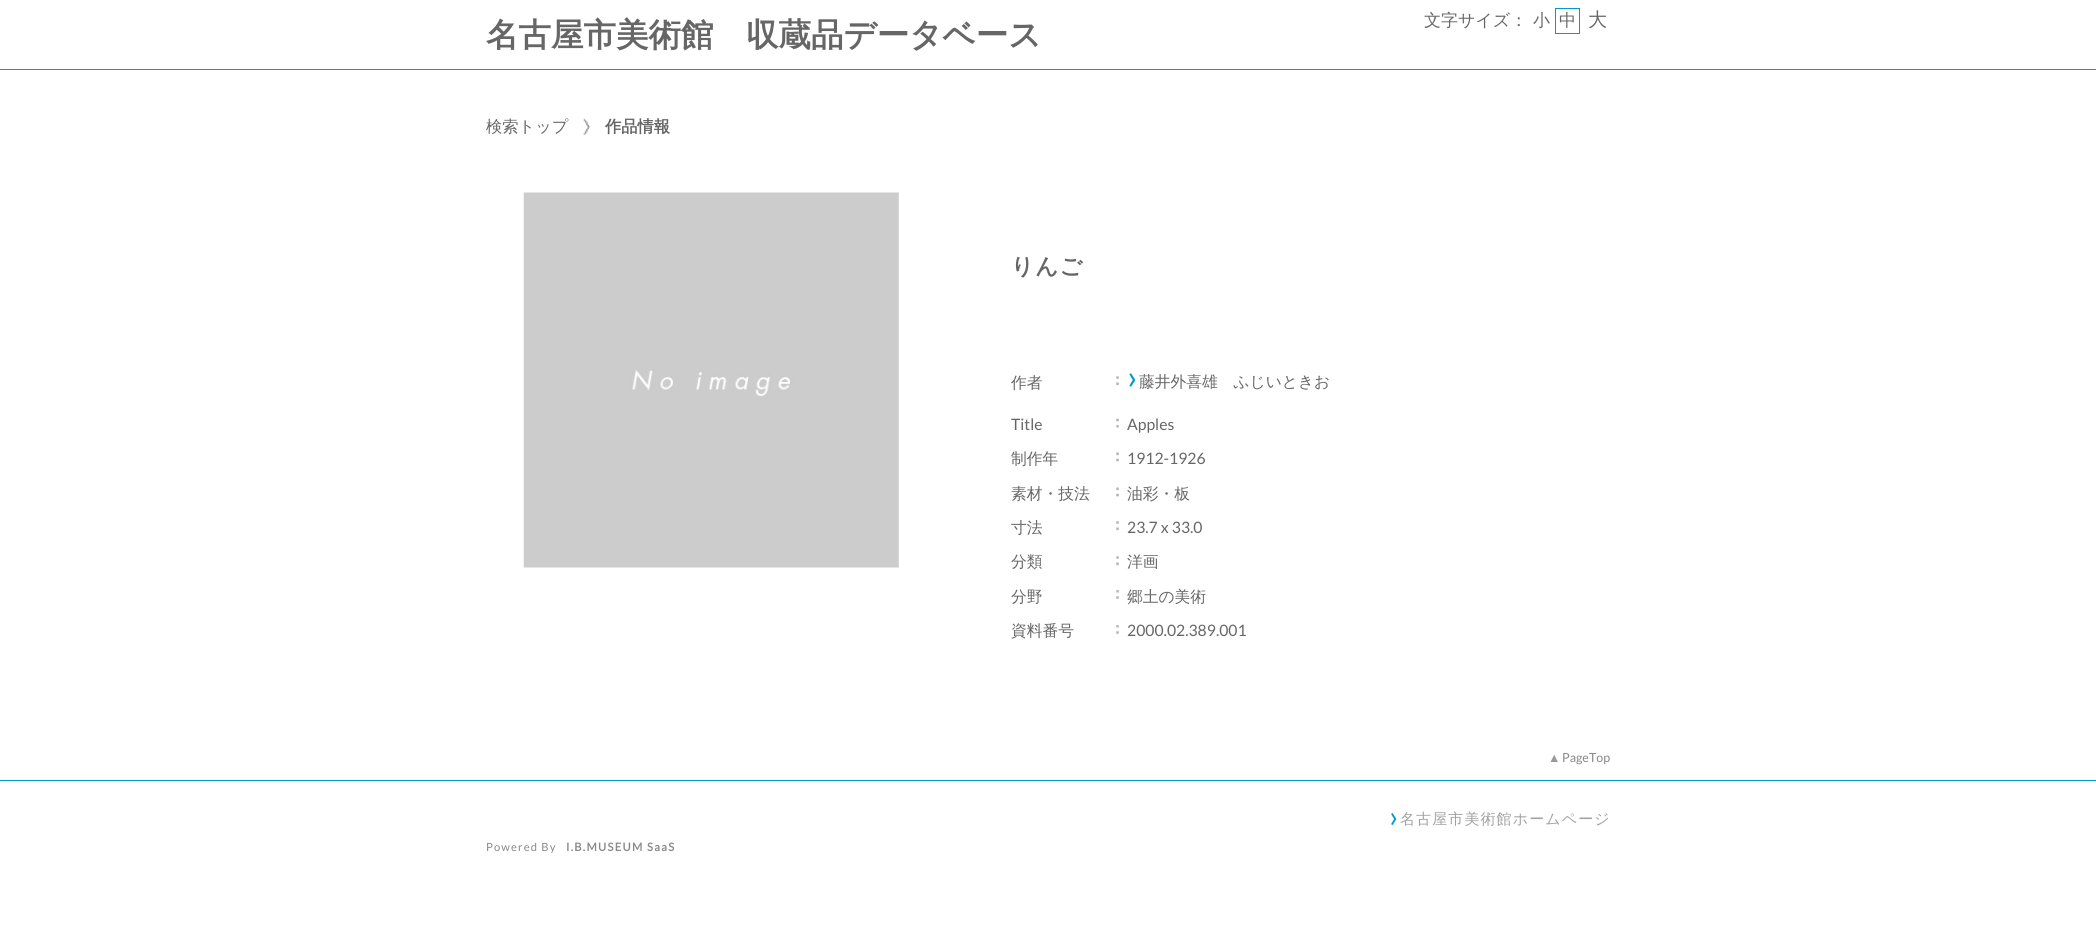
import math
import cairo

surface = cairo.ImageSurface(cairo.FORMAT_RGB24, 2096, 934)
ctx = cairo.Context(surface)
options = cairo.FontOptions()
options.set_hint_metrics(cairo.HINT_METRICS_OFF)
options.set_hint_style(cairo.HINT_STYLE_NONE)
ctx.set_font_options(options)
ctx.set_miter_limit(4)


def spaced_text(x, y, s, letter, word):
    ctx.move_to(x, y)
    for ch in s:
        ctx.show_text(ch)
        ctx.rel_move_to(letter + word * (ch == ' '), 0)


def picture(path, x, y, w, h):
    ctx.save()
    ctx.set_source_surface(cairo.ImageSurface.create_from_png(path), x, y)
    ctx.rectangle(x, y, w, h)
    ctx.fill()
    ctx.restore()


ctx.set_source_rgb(1, 1, 1)
ctx.paint()
ctx.select_font_face("WenQuanYi Zen Hei", cairo.FONT_SLANT_NORMAL, cairo.FONT_WEIGHT_BOLD)
ctx.set_font_size(32.5)
ctx.set_source_rgb(0.4, 0.4, 0.4)
ctx.move_to(486, 46)
ctx.show_text("名古屋市美術館　収蔵品データベース")
ctx.select_font_face("WenQuanYi Zen Hei Medium")
ctx.set_font_size(17)
ctx.move_to(1424, 26)
ctx.show_text("文字サイズ：")
ctx.move_to(1533, 26)
ctx.show_text("小")
ctx.rectangle(1555.5, 8.5, 24, 25)
ctx.set_source_rgb(0, 0.6, 0.8)
ctx.set_line_width(1)
ctx.stroke()
ctx.set_source_rgb(0.4, 0.4, 0.4)
ctx.move_to(1559, 26)
ctx.show_text("中")
ctx.set_font_size(19)
ctx.move_to(1588, 26)
ctx.show_text("大")
ctx.set_source_rgb(0, 0.6, 0.8)
ctx.rectangle(0, 69, 2096, 1)
ctx.fill()
ctx.rectangle(0, 780, 2096, 1)
ctx.fill()
ctx.set_font_size(16.25)
ctx.set_source_rgb(0.4, 0.4, 0.4)
ctx.move_to(486, 132)
ctx.show_text("検索トップ")
picture("img1.png", 583, 118, 8, 18)
ctx.select_font_face("WenQuanYi Zen Hei", cairo.FONT_SLANT_NORMAL, cairo.FONT_WEIGHT_BOLD)
ctx.move_to(605, 132)
ctx.show_text("作品情報")
picture("img2.png", 523, 192, 376, 376)
ctx.set_font_size(22.5)
spaced_text(1011, 274, "りんご", 1.25, 0)
ctx.select_font_face("WenQuanYi Zen Hei Medium")
ctx.set_font_size(15.75)
ctx.move_to(1011, 388)
ctx.show_text("作者")
picture("img3.png", 1116, 376, 3, 10)
ctx.select_font_face("Lato")
ctx.set_font_size(34)
ctx.set_source_rgb(0, 0.6, 0.8)
ctx.move_to(1127, 389)
ctx.show_text("›")
ctx.select_font_face("WenQuanYi Zen Hei Medium")
ctx.set_font_size(15.75)
ctx.set_source_rgb(0.4, 0.4, 0.4)
ctx.move_to(1139, 387)
ctx.show_text("藤井外喜雄　ふじいときお")
ctx.select_font_face("Lato")
ctx.move_to(1011, 430)
ctx.show_text("Title")
picture("img4.png", 1116, 418, 3, 10)
ctx.move_to(1127, 430)
ctx.show_text("Apples")
ctx.select_font_face("WenQuanYi Zen Hei Medium")
ctx.move_to(1011, 464)
ctx.show_text("制作年")
picture("img5.png", 1116, 452, 3, 10)
ctx.select_font_face("Lato")
ctx.move_to(1127, 464)
ctx.show_text("1912-1926")
ctx.select_font_face("WenQuanYi Zen Hei Medium")
ctx.move_to(1011, 499)
ctx.show_text("素材・技法")
picture("img5.png", 1116, 487, 3, 10)
ctx.move_to(1127, 499)
ctx.show_text("油彩・板")
ctx.move_to(1011, 533)
ctx.show_text("寸法")
picture("img3.png", 1116, 521, 3, 10)
ctx.select_font_face("Lato")
ctx.move_to(1127, 533)
ctx.show_text("23.7 x 33.0")
ctx.select_font_face("WenQuanYi Zen Hei Medium")
ctx.move_to(1011, 567)
ctx.show_text("分類")
picture("img3.png", 1116, 556, 3, 10)
ctx.move_to(1127, 567)
ctx.show_text("洋画")
ctx.move_to(1011, 602)
ctx.show_text("分野")
picture("img6.png", 1116, 590, 3, 9)
ctx.move_to(1127, 602)
ctx.show_text("郷土の美術")
ctx.move_to(1011, 636)
ctx.show_text("資料番号")
picture("img6.png", 1116, 625, 3, 9)
ctx.select_font_face("Lato")
ctx.move_to(1127, 636)
ctx.show_text("2000.02.389.001")
ctx.select_font_face("Liberation Sans")
ctx.set_font_size(12.5)
ctx.set_source_rgb(0.6, 0.6, 0.6)
ctx.move_to(1548, 762)
ctx.show_text("▲")
ctx.select_font_face("Lato")
ctx.set_source_rgb(0.533, 0.533, 0.533)
ctx.move_to(1562, 762)
ctx.show_text("PageTop")
ctx.set_font_size(30)
ctx.set_source_rgb(0, 0.6, 0.8)
spaced_text(1389, 827, "›", 1.1, 0)
ctx.select_font_face("WenQuanYi Zen Hei Medium")
ctx.set_font_size(15)
ctx.set_source_rgb(0.631, 0.631, 0.631)
spaced_text(1400, 824, "名古屋市美術館ホームページ", 1.1, 0)
ctx.select_font_face("Lato")
ctx.set_font_size(11.25)
ctx.set_source_rgb(0.533, 0.533, 0.533)
spaced_text(486, 851, "Powered By", 1.1, 0)
ctx.select_font_face("Lato", cairo.FONT_SLANT_NORMAL, cairo.FONT_WEIGHT_BOLD)
spaced_text(566, 851, "I.B.MUSEUM SaaS", 1.25, 0)
surface.write_to_png("page.png")
